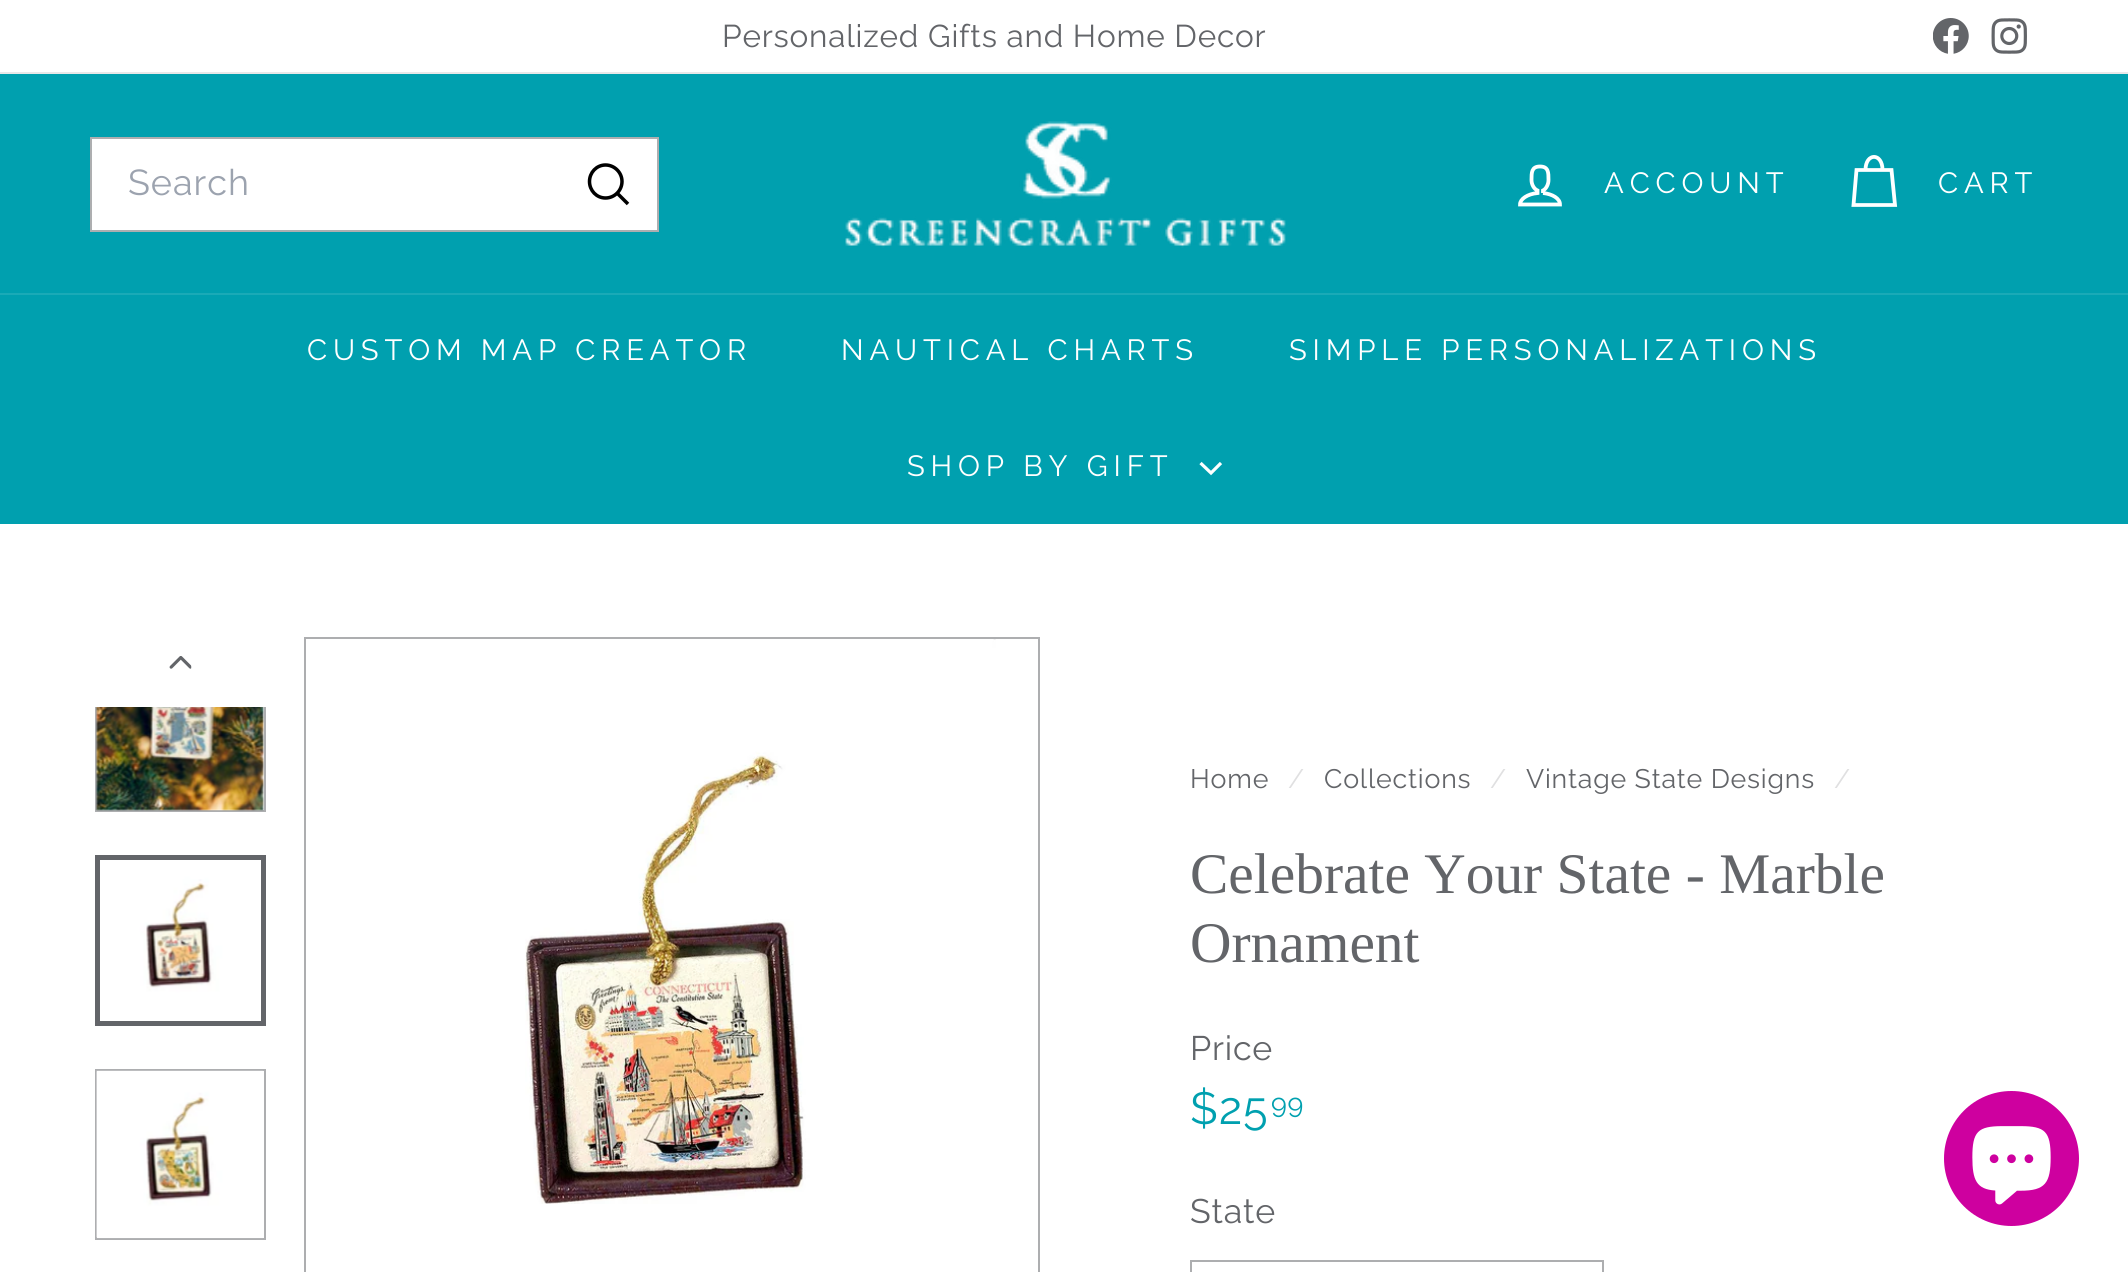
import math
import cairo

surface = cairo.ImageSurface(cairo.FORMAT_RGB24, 2128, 1272)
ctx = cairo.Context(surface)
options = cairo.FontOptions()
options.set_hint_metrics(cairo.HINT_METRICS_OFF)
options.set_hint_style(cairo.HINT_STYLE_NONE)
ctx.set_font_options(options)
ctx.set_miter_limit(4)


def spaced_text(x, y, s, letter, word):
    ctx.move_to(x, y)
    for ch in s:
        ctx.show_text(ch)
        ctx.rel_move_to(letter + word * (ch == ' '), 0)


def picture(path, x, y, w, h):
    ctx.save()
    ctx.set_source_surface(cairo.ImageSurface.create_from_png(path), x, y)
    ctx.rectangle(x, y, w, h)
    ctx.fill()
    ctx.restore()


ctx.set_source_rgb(1, 1, 1)
ctx.paint()
ctx.select_font_face("Raleway")
ctx.set_font_size(31.5)
ctx.set_source_rgb(0.388, 0.396, 0.412)
spaced_text(722, 47, "Personalized Gifts and Home Decor", 0.8, 0)
picture("img1.png", 1933, 18, 36, 36)
picture("img2.png", 1991, 18, 36, 36)
ctx.set_source_rgb(0.91, 0.91, 0.914)
ctx.rectangle(0, 72, 2128, 2)
ctx.fill()
ctx.set_source_rgb(0, 0.627, 0.686)
ctx.rectangle(0, 74, 2128, 219)
ctx.fill()
ctx.set_source_rgb(1, 1, 1)
ctx.rectangle(91, 138, 567, 93)
ctx.fill_preserve()
ctx.set_source_rgb(0.678, 0.682, 0.69)
ctx.stroke()
ctx.set_font_size(36)
ctx.set_source_rgb(0.612, 0.639, 0.686)
spaced_text(128, 195, "Search", 1, 0)
ctx.new_path()
ctx.move_to(622, 181.5)
ctx.curve_to(622, 190.5, 614.5, 198, 605.5, 198)
ctx.curve_to(596.5, 198, 589.5, 190.5, 589.5, 181.5)
ctx.curve_to(589.5, 172.5, 596.5, 165, 605.5, 165)
ctx.curve_to(614.5, 165, 622, 172.5, 622, 181.5)
ctx.move_to(628, 204)
ctx.line_to(617.5, 193.5)
ctx.set_source_rgb(0, 0, 0)
ctx.set_line_width(3.5)
ctx.stroke()
picture("img3.png", 845, 121, 441, 127)
ctx.new_path()
ctx.move_to(1543, 193)
ctx.line_to(1543, 190.5)
ctx.curve_to(1546, 189, 1548.5, 184.5, 1548.5, 180)
ctx.curve_to(1548.5, 172.5, 1548.5, 166.5, 1540, 166.5)
ctx.curve_to(1531.5, 166.5, 1531.5, 172.5, 1531.5, 180)
ctx.curve_to(1531.5, 184.5, 1534, 189, 1537.5, 190.5)
ctx.line_to(1537.5, 193)
ctx.curve_to(1527.5, 194, 1520, 199, 1520, 204.5)
ctx.line_to(1560, 204.5)
ctx.curve_to(1560, 198.5, 1552.5, 194, 1543, 193)
ctx.set_source_rgb(1, 1, 1)
ctx.set_line_width(3.8)
ctx.stroke()
ctx.set_font_size(29.25)
spaced_text(1604, 193, "ACCOUNT", 5.85, 0)
ctx.new_path()
ctx.move_to(1865.5, 170)
ctx.curve_to(1865.5, 152.5, 1882.5, 152.5, 1882.5, 170)
ctx.move_to(1856.5, 170)
ctx.line_to(1891.5, 170)
ctx.line_to(1895, 205)
ctx.line_to(1853.5, 205)
ctx.close_path()
ctx.stroke()
spaced_text(1938, 193, "CART", 5.85, 0)
ctx.set_source_rgb(0, 0.627, 0.686)
ctx.rectangle(0, 295, 2128, 229)
ctx.fill()
ctx.set_source_rgb(0.102, 0.667, 0.718)
ctx.rectangle(0, 293, 2128, 2)
ctx.fill()
ctx.set_source_rgb(1, 1, 1)
spaced_text(307, 360, "CUSTOM MAP CREATOR", 5.85, 0)
spaced_text(841, 360, "NAUTICAL CHARTS", 5.85, 0)
spaced_text(1289, 360, "SIMPLE PERSONALIZATIONS", 5.85, 0)
spaced_text(907, 476, "SHOP BY GIFT", 5.85, 0)
ctx.new_path()
ctx.move_to(1200.5, 463)
ctx.line_to(1211, 473)
ctx.line_to(1221, 463)
ctx.set_line_width(3.2)
ctx.stroke()
ctx.rectangle(96, 642, 169, 169)
ctx.set_source_rgb(0.678, 0.682, 0.69)
ctx.set_line_width(2)
ctx.stroke()
picture("img4.png", 96, 707, 168, 104)
picture("img5.png", 100, 860, 161, 161)
ctx.rectangle(97.5, 857.5, 166, 166)
ctx.set_source_rgb(0.388, 0.396, 0.412)
ctx.set_line_width(5)
ctx.stroke()
ctx.rectangle(96, 1070, 169, 169)
ctx.set_source_rgb(0.678, 0.682, 0.69)
ctx.set_line_width(2)
ctx.stroke()
picture("img6.png", 96, 1070, 168, 169)
ctx.set_source_rgb(1, 1, 1)
ctx.rectangle(95, 641, 171, 66)
ctx.fill()
picture("img7.png", 169, 656, 23, 13)
ctx.rectangle(305, 638, 734, 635)
ctx.set_source_rgb(0.678, 0.682, 0.69)
ctx.stroke()
picture("img8.png", 525, 639, 471, 565)
ctx.set_font_size(26.75)
ctx.set_source_rgb(0.388, 0.396, 0.412)
spaced_text(1190, 788, "Home", 0.8, 0)
ctx.set_source_rgb(0.878, 0.878, 0.882)
spaced_text(1288, 788, "/", 0.8, 0)
ctx.set_source_rgb(0.388, 0.396, 0.412)
spaced_text(1324, 788, "Collections", 0.8, 0)
ctx.set_source_rgb(0.878, 0.878, 0.882)
spaced_text(1490, 788, "/", 0.8, 0)
ctx.set_source_rgb(0.388, 0.396, 0.412)
spaced_text(1526, 788, "Vintage State Designs", 0.8, 0)
ctx.set_source_rgb(0.878, 0.878, 0.882)
spaced_text(1834, 788, "/", 0.8, 0)
ctx.select_font_face("Liberation Serif")
ctx.set_font_size(57.4)
ctx.set_source_rgb(0.388, 0.396, 0.412)
ctx.move_to(1190, 893)
ctx.show_text("Celebrate Your State - Marble")
ctx.move_to(1190, 962)
ctx.show_text("Ornament")
ctx.select_font_face("Raleway")
ctx.set_font_size(34)
spaced_text(1190, 1060, "Price", 0.8, 0)
ctx.set_font_size(45)
ctx.set_source_rgb(0, 0.627, 0.686)
spaced_text(1190, 1124, "$25", 0.8, 0)
ctx.set_font_size(27)
spaced_text(1271, 1113, "99", 0.8, 0)
ctx.set_font_size(34)
ctx.set_source_rgb(0.388, 0.396, 0.412)
spaced_text(1190, 1223, "State", 0.8, 0)
ctx.rectangle(1191, 1261, 412, 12)
ctx.set_source_rgb(0.678, 0.682, 0.69)
ctx.stroke()
ctx.set_source_rgb(0.808, 0, 0.624)
ctx.arc(2011.5, 1158.5, 67.5, 0, 2 * math.pi)
ctx.fill()
picture("img9.png", 1972, 1126, 79, 79)
surface.write_to_png("page.png")
